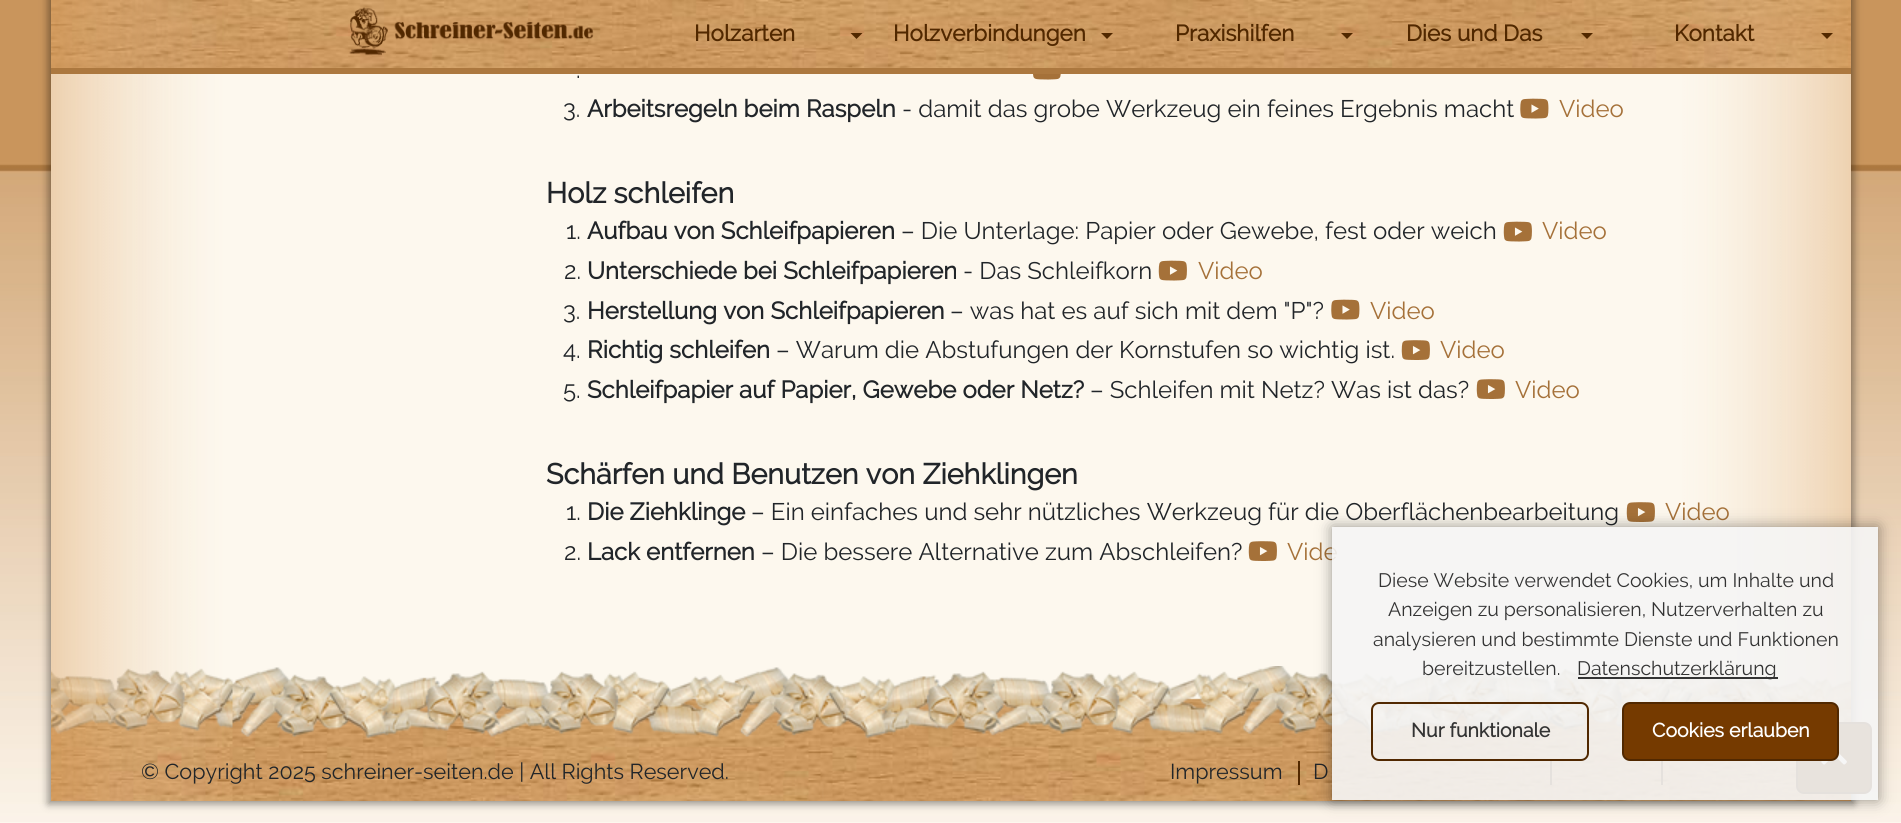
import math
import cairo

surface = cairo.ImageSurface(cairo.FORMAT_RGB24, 1901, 823)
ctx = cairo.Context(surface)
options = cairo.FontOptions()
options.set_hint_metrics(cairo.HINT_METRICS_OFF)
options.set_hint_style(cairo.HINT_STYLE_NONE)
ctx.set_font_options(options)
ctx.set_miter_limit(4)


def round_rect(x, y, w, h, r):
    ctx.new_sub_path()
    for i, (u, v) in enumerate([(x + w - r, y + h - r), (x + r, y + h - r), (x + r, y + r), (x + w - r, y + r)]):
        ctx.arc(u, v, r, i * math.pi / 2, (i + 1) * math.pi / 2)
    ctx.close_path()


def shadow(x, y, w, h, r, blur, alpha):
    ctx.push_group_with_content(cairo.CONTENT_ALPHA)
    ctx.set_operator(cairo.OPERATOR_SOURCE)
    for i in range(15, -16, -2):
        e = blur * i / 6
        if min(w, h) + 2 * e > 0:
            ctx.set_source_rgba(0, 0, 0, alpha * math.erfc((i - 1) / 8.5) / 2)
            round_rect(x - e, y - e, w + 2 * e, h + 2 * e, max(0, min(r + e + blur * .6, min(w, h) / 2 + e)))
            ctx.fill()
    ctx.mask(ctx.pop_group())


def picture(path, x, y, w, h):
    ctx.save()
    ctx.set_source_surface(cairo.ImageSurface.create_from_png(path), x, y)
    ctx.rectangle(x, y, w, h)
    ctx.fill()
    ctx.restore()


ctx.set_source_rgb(0.992, 0.969, 0.933)
ctx.paint()
picture("img1.png", 0, 0, 1901, 822)
ctx.set_source_rgb(0, 0, 0)
shadow(48, -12, 1806, 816, 0, 4, 0.4)
picture("img2.png", 51, 0, 1800, 68)
ctx.set_source_rgb(0.675, 0.471, 0.247)
ctx.rectangle(51, 68, 1800, 6)
ctx.fill()
picture("img3.png", 349, 7, 245, 49)
ctx.select_font_face("Raleway", cairo.FONT_SLANT_NORMAL, cairo.FONT_WEIGHT_BOLD)
ctx.set_font_size(22.5)
ctx.set_source_rgb(0.318, 0.157, 0)
ctx.move_to(694, 41)
ctx.show_text("Holzarten")
ctx.new_path()
ctx.move_to(850.5, 33)
ctx.line_to(862.5, 33)
ctx.line_to(856.5, 39)
ctx.close_path()
ctx.fill()
ctx.move_to(893, 41)
ctx.show_text("Holzverbindungen")
ctx.new_path()
ctx.move_to(1101, 33)
ctx.line_to(1113, 33)
ctx.line_to(1107, 39)
ctx.close_path()
ctx.fill()
ctx.move_to(1175, 41)
ctx.show_text("Praxishilfen")
ctx.new_path()
ctx.move_to(1341, 33)
ctx.line_to(1353, 33)
ctx.line_to(1347, 39)
ctx.close_path()
ctx.fill()
ctx.move_to(1406, 41)
ctx.show_text("Dies und Das")
ctx.new_path()
ctx.move_to(1581, 33)
ctx.line_to(1593, 33)
ctx.line_to(1587, 39)
ctx.close_path()
ctx.fill()
ctx.move_to(1674, 41)
ctx.show_text("Kontakt")
ctx.new_path()
ctx.move_to(1821, 33)
ctx.line_to(1833, 33)
ctx.line_to(1827, 39)
ctx.close_path()
ctx.fill()
ctx.set_source_rgb(0.992, 0.969, 0.933)
ctx.rectangle(51, 74, 1800, 727)
ctx.fill()
picture("img4.png", 51, 74, 1800, 592)
ctx.select_font_face("Raleway")
ctx.set_font_size(24)
ctx.set_source_rgb(0.129, 0.145, 0.161)
ctx.move_to(576, 78)
ctx.show_text(".")
picture("img5.png", 1033, 74, 28, 6)
ctx.move_to(563, 117)
ctx.show_text("3.")
ctx.select_font_face("Raleway", cairo.FONT_SLANT_NORMAL, cairo.FONT_WEIGHT_BOLD)
ctx.move_to(587, 117)
ctx.show_text("Arbeitsregeln beim Raspeln")
ctx.select_font_face("Raleway")
ctx.move_to(902, 117)
ctx.show_text("- damit das grobe Werkzeug ein feines Ergebnis macht")
picture("img6.png", 1520, 98, 29, 21)
ctx.set_source_rgb(0.647, 0.443, 0.224)
ctx.move_to(1559, 117)
ctx.show_text("Video")
ctx.select_font_face("Raleway", cairo.FONT_SLANT_NORMAL, cairo.FONT_WEIGHT_BOLD)
ctx.set_font_size(28.75)
ctx.set_source_rgb(0.129, 0.145, 0.161)
ctx.move_to(546, 203)
ctx.show_text("Holz schleifen")
ctx.select_font_face("Raleway")
ctx.set_font_size(24)
ctx.move_to(566, 239)
ctx.show_text("1.")
ctx.select_font_face("Raleway", cairo.FONT_SLANT_NORMAL, cairo.FONT_WEIGHT_BOLD)
ctx.move_to(587, 239)
ctx.show_text("Aufbau von Schleifpapieren")
ctx.select_font_face("Raleway")
ctx.move_to(901, 239)
ctx.show_text("– Die Unterlage: Papier oder Gewebe, fest oder weich")
picture("img7.png", 1503, 221, 29, 21)
ctx.set_source_rgb(0.647, 0.443, 0.224)
ctx.move_to(1542, 239)
ctx.show_text("Video")
ctx.set_source_rgb(0.129, 0.145, 0.161)
ctx.move_to(564, 279)
ctx.show_text("2.")
ctx.select_font_face("Raleway", cairo.FONT_SLANT_NORMAL, cairo.FONT_WEIGHT_BOLD)
ctx.move_to(587, 279)
ctx.show_text("Unterschiede bei Schleifpapieren")
ctx.select_font_face("Raleway")
ctx.move_to(963, 279)
ctx.show_text("- Das Schleifkorn")
picture("img7.png", 1158, 260, 29, 21)
ctx.set_source_rgb(0.647, 0.443, 0.224)
ctx.move_to(1198, 279)
ctx.show_text("Video")
ctx.set_source_rgb(0.129, 0.145, 0.161)
ctx.move_to(563, 319)
ctx.show_text("3.")
ctx.select_font_face("Raleway", cairo.FONT_SLANT_NORMAL, cairo.FONT_WEIGHT_BOLD)
ctx.move_to(587, 319)
ctx.show_text("Herstellung von Schleifpapieren")
ctx.select_font_face("Raleway")
ctx.move_to(950, 319)
ctx.show_text("– was hat es auf sich mit dem \"P\"?")
picture("img6.png", 1331, 299, 29, 21)
ctx.set_source_rgb(0.647, 0.443, 0.224)
ctx.move_to(1370, 319)
ctx.show_text("Video")
ctx.set_source_rgb(0.129, 0.145, 0.161)
ctx.move_to(563, 358)
ctx.show_text("4.")
ctx.select_font_face("Raleway", cairo.FONT_SLANT_NORMAL, cairo.FONT_WEIGHT_BOLD)
ctx.move_to(587, 358)
ctx.show_text("Richtig schleifen")
ctx.select_font_face("Raleway")
ctx.move_to(776, 358)
ctx.show_text("– Warum die Abstufungen der Kornstufen so wichtig ist.")
picture("img8.png", 1401, 340, 29, 20)
ctx.set_source_rgb(0.647, 0.443, 0.224)
ctx.move_to(1440, 358)
ctx.show_text("Video")
ctx.set_source_rgb(0.129, 0.145, 0.161)
ctx.move_to(563, 398)
ctx.show_text("5.")
ctx.select_font_face("Raleway", cairo.FONT_SLANT_NORMAL, cairo.FONT_WEIGHT_BOLD)
ctx.move_to(587, 398)
ctx.show_text("Schleifpapier auf Papier, Gewebe oder Netz?")
ctx.select_font_face("Raleway")
ctx.move_to(1090, 398)
ctx.show_text("– Schleifen mit Netz? Was ist das?")
picture("img8.png", 1476, 379, 29, 20)
ctx.set_source_rgb(0.647, 0.443, 0.224)
ctx.move_to(1515, 398)
ctx.show_text("Video")
ctx.select_font_face("Raleway", cairo.FONT_SLANT_NORMAL, cairo.FONT_WEIGHT_BOLD)
ctx.set_font_size(28.75)
ctx.set_source_rgb(0.129, 0.145, 0.161)
ctx.move_to(546, 484)
ctx.show_text("Schärfen und Benutzen von Ziehklingen")
ctx.select_font_face("Raleway")
ctx.set_font_size(24)
ctx.move_to(566, 520)
ctx.show_text("1.")
ctx.select_font_face("Raleway", cairo.FONT_SLANT_NORMAL, cairo.FONT_WEIGHT_BOLD)
ctx.move_to(587, 520)
ctx.show_text("Die Ziehklinge")
ctx.select_font_face("Raleway")
ctx.move_to(751, 520)
ctx.show_text("– Ein einfaches und sehr nützliches Werkzeug für die Oberflächenbearbeitung")
picture("img8.png", 1626, 502, 29, 20)
ctx.set_source_rgb(0.647, 0.443, 0.224)
ctx.move_to(1665, 520)
ctx.show_text("Video")
ctx.set_source_rgb(0.129, 0.145, 0.161)
ctx.move_to(564, 560)
ctx.show_text("2.")
ctx.select_font_face("Raleway", cairo.FONT_SLANT_NORMAL, cairo.FONT_WEIGHT_BOLD)
ctx.move_to(587, 560)
ctx.show_text("Lack entfernen")
ctx.select_font_face("Raleway")
ctx.move_to(761, 560)
ctx.show_text("– Die bessere Alternative zum Abschleifen?")
picture("img8.png", 1248, 541, 29, 20)
ctx.set_source_rgb(0.647, 0.443, 0.224)
ctx.move_to(1287, 560)
ctx.show_text("Vide")
picture("img9.png", 51, 666, 1800, 135)
ctx.set_font_size(21.6)
ctx.set_source_rgb(0.129, 0.145, 0.161)
ctx.move_to(141, 779)
ctx.show_text("© Copyright 2025 schreiner-seiten.de | All Rights Reserved.")
ctx.move_to(1170, 779)
ctx.show_text("Impressum")
ctx.set_source_rgb(0.318, 0.157, 0)
ctx.rectangle(1298, 761, 2, 24)
ctx.fill()
ctx.set_source_rgb(0.129, 0.145, 0.161)
ctx.move_to(1313, 779)
ctx.show_text("D")
ctx.set_source_rgb(0.318, 0.157, 0)
ctx.rectangle(1550, 761, 2, 24)
ctx.fill()
ctx.rectangle(1661, 761, 2, 24)
ctx.fill()
ctx.set_source_rgb(0.459, 0.227, 0)
round_rect(1797, 723, 74, 70, 7)
ctx.fill_preserve()
ctx.set_source_rgb(0.318, 0.157, 0)
ctx.stroke()
picture("img10.png", 1821, 753, 26, 12)
ctx.save()
ctx.set_fill_rule(cairo.FILL_RULE_EVEN_ODD)
ctx.new_path()
ctx.move_to(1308, 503)
ctx.line_to(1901, 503)
ctx.line_to(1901, 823)
ctx.line_to(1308, 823)
ctx.close_path()
ctx.move_to(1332, 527)
ctx.line_to(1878, 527)
ctx.line_to(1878, 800)
ctx.line_to(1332, 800)
ctx.close_path()
ctx.clip()
ctx.set_source_rgb(0, 0, 0)
shadow(1332, 527, 546, 273, 0, 7.5, 0.4)
ctx.restore()
ctx.set_source_rgba(0.961, 0.961, 0.961, 0.9)
ctx.rectangle(1332, 527, 546, 273)
ctx.fill()
ctx.set_font_size(19.5)
ctx.set_source_rgb(0.2, 0.2, 0.2)
ctx.move_to(1378, 587)
ctx.show_text("Diese Website verwendet Cookies, um Inhalte und")
ctx.move_to(1388, 616)
ctx.show_text("Anzeigen zu personalisieren, Nutzerverhalten zu")
ctx.move_to(1373, 646)
ctx.show_text("analysieren und bestimmte Dienste und Funktionen")
ctx.move_to(1422, 675)
ctx.show_text("bereitzustellen.")
ctx.rectangle(1578, 677, 200, 2)
ctx.fill()
ctx.move_to(1577, 675)
ctx.show_text("Datenschutzerklärung")
round_rect(1372, 703, 216, 57, 7)
ctx.set_source_rgb(0.318, 0.157, 0)
ctx.stroke()
ctx.select_font_face("Raleway", cairo.FONT_SLANT_NORMAL, cairo.FONT_WEIGHT_BOLD)
ctx.set_source_rgb(0.2, 0.2, 0.2)
ctx.move_to(1411, 737)
ctx.show_text("Nur funktionale")
ctx.set_source_rgb(0.459, 0.227, 0)
round_rect(1623, 703, 215, 57, 7)
ctx.fill_preserve()
ctx.set_source_rgb(0.318, 0.157, 0)
ctx.stroke()
ctx.set_source_rgb(1, 1, 1)
ctx.move_to(1652, 737)
ctx.show_text("Cookies erlauben")
surface.write_to_png("page.png")
